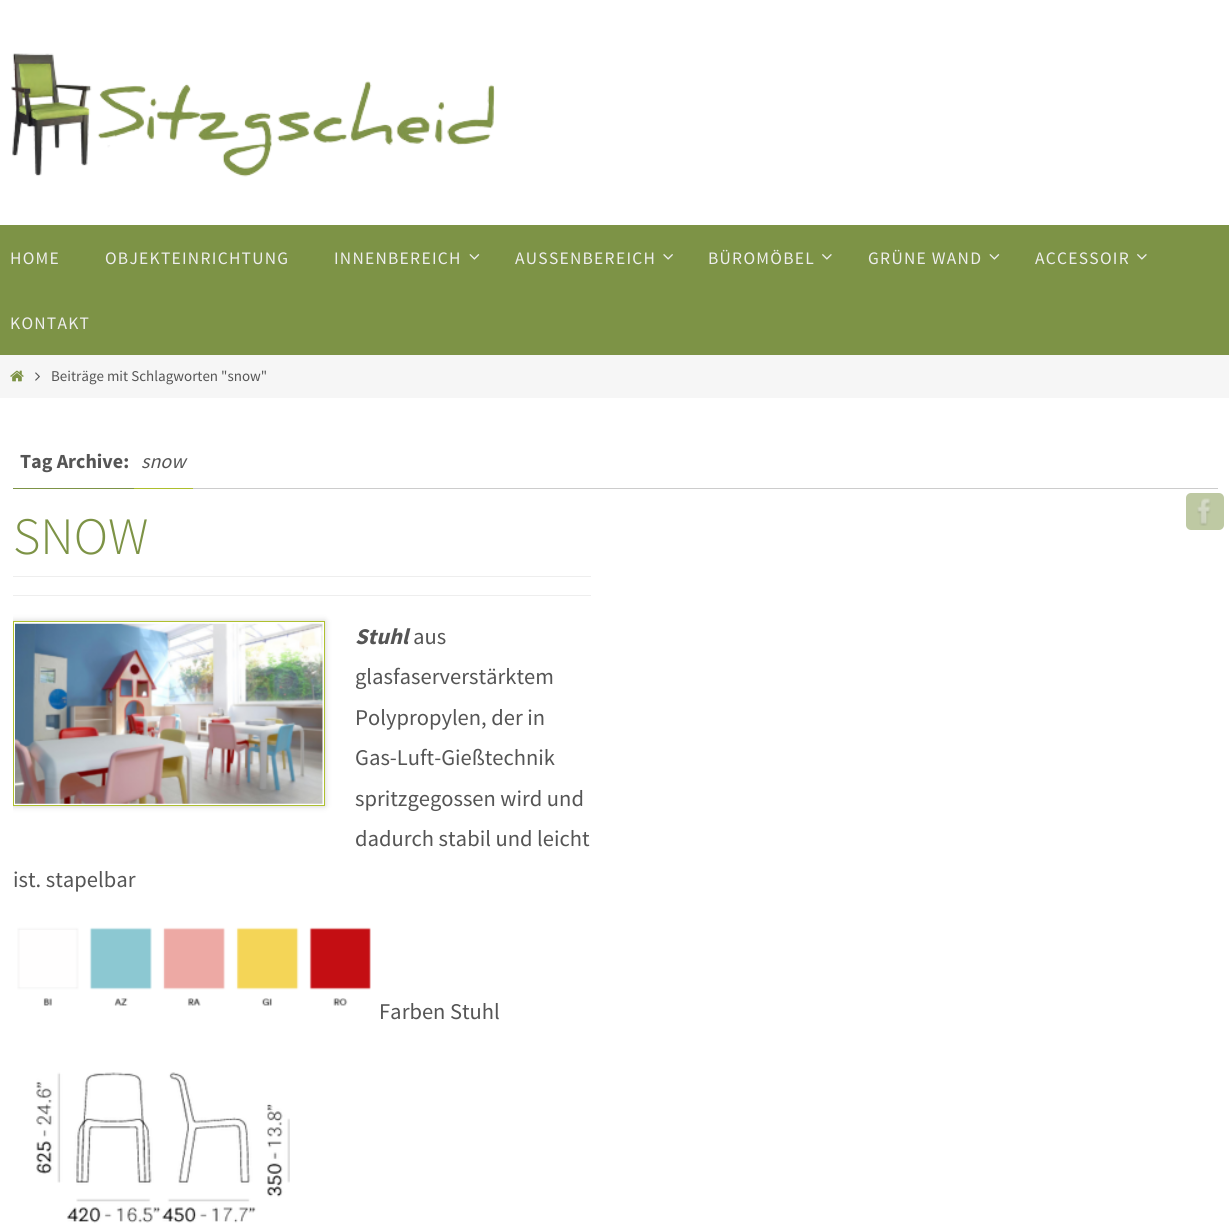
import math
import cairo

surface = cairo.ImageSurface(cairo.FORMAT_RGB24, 1229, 1227)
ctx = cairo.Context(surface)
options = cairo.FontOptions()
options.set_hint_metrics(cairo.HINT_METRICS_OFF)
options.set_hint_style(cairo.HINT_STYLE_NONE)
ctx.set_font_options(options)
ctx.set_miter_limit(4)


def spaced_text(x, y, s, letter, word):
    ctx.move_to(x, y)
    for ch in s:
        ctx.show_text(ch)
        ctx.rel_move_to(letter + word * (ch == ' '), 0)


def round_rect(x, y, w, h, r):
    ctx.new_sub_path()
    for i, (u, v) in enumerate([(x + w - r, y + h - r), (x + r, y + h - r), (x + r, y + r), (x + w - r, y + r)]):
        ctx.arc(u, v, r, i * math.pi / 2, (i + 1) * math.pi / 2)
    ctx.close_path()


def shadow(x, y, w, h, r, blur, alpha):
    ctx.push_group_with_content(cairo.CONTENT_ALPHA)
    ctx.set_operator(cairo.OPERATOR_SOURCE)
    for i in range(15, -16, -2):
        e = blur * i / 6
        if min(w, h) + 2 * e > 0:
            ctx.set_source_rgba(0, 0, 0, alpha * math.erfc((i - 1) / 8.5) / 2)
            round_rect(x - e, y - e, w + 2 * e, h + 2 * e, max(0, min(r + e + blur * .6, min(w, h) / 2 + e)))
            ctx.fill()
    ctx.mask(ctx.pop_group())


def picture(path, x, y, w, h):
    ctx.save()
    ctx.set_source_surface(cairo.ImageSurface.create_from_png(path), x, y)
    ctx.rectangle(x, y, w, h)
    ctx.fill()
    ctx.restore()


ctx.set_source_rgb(1, 1, 1)
ctx.paint()
picture("img1.png", 11, 53, 484, 124)
ctx.set_source_rgb(0.49, 0.576, 0.275)
ctx.rectangle(0, 225, 1229, 130)
ctx.fill()
ctx.select_font_face("Source Sans Pro")
ctx.set_font_size(17.5)
ctx.set_source_rgb(0.933, 0.933, 0.933)
spaced_text(10, 264, "HOME", 1.25, 0)
spaced_text(105, 264, "OBJEKTEINRICHTUNG", 1.25, 0)
spaced_text(334, 264, "INNENBEREICH", 1.25, 0)
picture("img2.png", 469, 254, 11, 6)
spaced_text(515, 264, "AUSSENBEREICH", 1.25, 0)
picture("img3.png", 663, 254, 10, 6)
spaced_text(708, 264, "BÜROMÖBEL", 1.25, 0)
picture("img4.png", 822, 254, 10, 6)
spaced_text(868, 264, "GRÜNE WAND", 1.25, 0)
picture("img2.png", 989, 254, 11, 6)
spaced_text(1035, 264, "ACCESSOIR", 1.25, 0)
picture("img4.png", 1137, 254, 10, 6)
spaced_text(10, 329, "KONTAKT", 1.25, 0)
ctx.set_source_rgb(0.961, 0.961, 0.961)
ctx.rectangle(0, 355, 1229, 43)
ctx.fill()
picture("img5.png", 10, 370, 14, 12)
picture("img6.png", 35, 372, 5, 9)
ctx.set_font_size(15)
ctx.set_source_rgb(0.333, 0.333, 0.333)
ctx.move_to(51, 381)
ctx.show_text("Beiträge mit Schlagworten \"snow\"")
ctx.set_source_rgb(0.8, 0.8, 0.8)
ctx.rectangle(193, 488, 1025, 1)
ctx.fill()
ctx.set_source_rgb(0.49, 0.576, 0.275)
ctx.rectangle(13, 488, 121, 1)
ctx.fill()
ctx.select_font_face("Source Sans Pro", cairo.FONT_SLANT_NORMAL, cairo.FONT_WEIGHT_BOLD)
ctx.set_font_size(20)
ctx.set_source_rgb(0.333, 0.333, 0.333)
ctx.move_to(20, 468)
ctx.show_text("Tag Archive:")
ctx.set_source_rgb(0.678, 0.749, 0.176)
ctx.rectangle(134, 488, 59, 1)
ctx.fill()
ctx.select_font_face("Source Sans Pro", cairo.FONT_SLANT_ITALIC)
ctx.set_source_rgb(0.333, 0.333, 0.333)
ctx.move_to(141, 468)
ctx.show_text("snow")
ctx.select_font_face("Source Sans Pro Light")
ctx.set_font_size(52.5)
ctx.set_source_rgb(0.49, 0.576, 0.275)
ctx.move_to(13, 554)
ctx.show_text("SNOW")
ctx.set_source_rgb(0.933, 0.933, 0.933)
ctx.rectangle(13, 576, 578, 1)
ctx.fill()
ctx.rectangle(13, 595, 578, 1)
ctx.fill()
ctx.save()
ctx.rectangle(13, 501, 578, 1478)
ctx.clip()
ctx.set_fill_rule(cairo.FILL_RULE_EVEN_ODD)
ctx.new_path()
ctx.move_to(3, 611)
ctx.line_to(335, 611)
ctx.line_to(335, 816)
ctx.line_to(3, 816)
ctx.close_path()
ctx.move_to(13, 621)
ctx.line_to(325, 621)
ctx.line_to(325, 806)
ctx.line_to(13, 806)
ctx.close_path()
ctx.clip()
ctx.set_source_rgb(0.804, 0.804, 0.804)
shadow(13, 621, 312, 185, 0, 3, 1)
ctx.restore()
ctx.rectangle(13.5, 621.5, 311, 184)
ctx.set_source_rgb(0.682, 0.753, 0.184)
ctx.set_line_width(1)
ctx.stroke()
picture("img7.png", 15, 623, 308, 181)
ctx.select_font_face("Source Sans Pro", cairo.FONT_SLANT_ITALIC, cairo.FONT_WEIGHT_BOLD)
ctx.set_font_size(22.5)
ctx.set_source_rgb(0.333, 0.333, 0.333)
ctx.move_to(355, 644)
ctx.show_text("Stuhl")
ctx.select_font_face("Source Sans Pro")
ctx.move_to(413, 644)
ctx.show_text("aus")
ctx.move_to(355, 684)
ctx.show_text("glasfaserverstärktem")
ctx.move_to(355, 725)
ctx.show_text("Polypropylen, der in")
ctx.move_to(355, 765)
ctx.show_text("Gas-Luft-Gießtechnik")
ctx.move_to(355, 806)
ctx.show_text("spritzgegossen wird und")
ctx.move_to(355, 846)
ctx.show_text("dadurch stabil und leicht")
ctx.move_to(13, 887)
ctx.show_text("ist. stapelbar")
picture("img8.png", 17, 927, 354, 79)
ctx.move_to(379, 1019)
ctx.show_text("Farben Stuhl")
picture("img9.png", 36, 1072, 254, 151)
ctx.set_source_rgb(0.745, 0.788, 0.639)
round_rect(1186, 493, 38, 37, 5)
ctx.fill()
picture("img10.png", 1197, 498, 14, 28)
surface.write_to_png("page.png")
